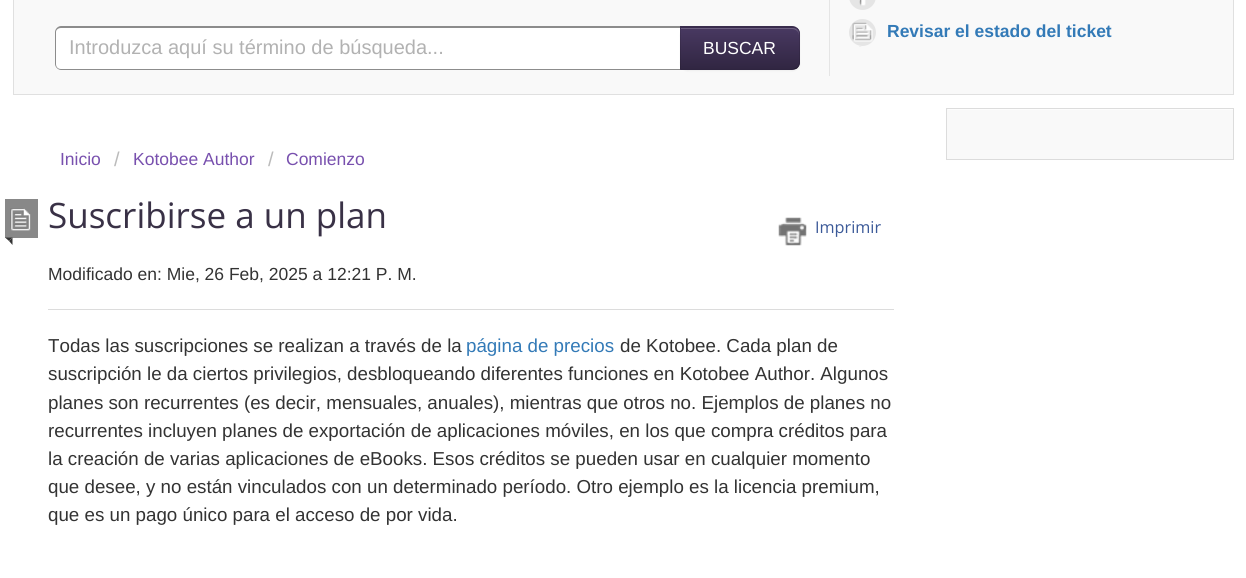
import math
import cairo

surface = cairo.ImageSurface(cairo.FORMAT_RGB24, 1246, 578)
ctx = cairo.Context(surface)
options = cairo.FontOptions()
options.set_hint_metrics(cairo.HINT_METRICS_OFF)
options.set_hint_style(cairo.HINT_STYLE_NONE)
ctx.set_font_options(options)
ctx.set_miter_limit(4)


def round_rect(x, y, w, h, r):
    ctx.new_sub_path()
    for i, (u, v) in enumerate([(x + w - r, y + h - r), (x + r, y + h - r), (x + r, y + r), (x + w - r, y + r)]):
        ctx.arc(u, v, r, i * math.pi / 2, (i + 1) * math.pi / 2)
    ctx.close_path()


def shadow(x, y, w, h, r, blur, alpha):
    ctx.push_group_with_content(cairo.CONTENT_ALPHA)
    ctx.set_operator(cairo.OPERATOR_SOURCE)
    for i in range(15, -16, -2):
        e = blur * i / 6
        if min(w, h) + 2 * e > 0:
            ctx.set_source_rgba(0, 0, 0, alpha * math.erfc((i - 1) / 8.5) / 2)
            round_rect(x - e, y - e, w + 2 * e, h + 2 * e, max(0, min(r + e + blur * .6, min(w, h) / 2 + e)))
            ctx.fill()
    ctx.mask(ctx.pop_group())


def picture(path, x, y, w, h):
    ctx.save()
    ctx.set_source_surface(cairo.ImageSurface.create_from_png(path), x, y)
    ctx.rectangle(x, y, w, h)
    ctx.fill()
    ctx.restore()


ctx.set_source_rgb(1, 1, 1)
ctx.paint()
ctx.set_source_rgb(0.976, 0.976, 0.976)
ctx.rectangle(13.5, -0.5, 1220, 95)
ctx.fill_preserve()
ctx.set_source_rgb(0.878, 0.878, 0.878)
ctx.set_line_width(1)
ctx.stroke()
ctx.set_source_rgb(0.898, 0.898, 0.898)
round_rect(849, -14, 27, 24, 13.5)
ctx.fill()
picture("img1.png", 859, 0, 7, 6)
ctx.arc(862.5, 32.5, 13.5, 0, 2 * math.pi)
ctx.fill()
picture("img2.png", 852, 22, 21, 25)
ctx.select_font_face("Liberation Sans", cairo.FONT_SLANT_NORMAL, cairo.FONT_WEIGHT_BOLD)
ctx.set_font_size(17.5)
ctx.set_source_rgb(0.2, 0.478, 0.718)
ctx.move_to(887, 37)
ctx.show_text("Revisar el estado del ticket")
ctx.set_source_rgb(0.898, 0.898, 0.898)
ctx.rectangle(829, 0, 1, 76)
ctx.fill()
ctx.set_source_rgb(1, 1, 1)
ctx.new_path()
ctx.move_to(61, 26)
ctx.line_to(680, 26)
ctx.line_to(680, 70)
ctx.line_to(61, 70)
ctx.curve_to(57.5, 70, 55, 67.5, 55, 64)
ctx.line_to(55, 32)
ctx.curve_to(55, 28.5, 57.5, 26, 61, 26)
ctx.close_path()
ctx.fill()
ctx.set_source_rgb(0.549, 0.549, 0.549)
ctx.set_fill_rule(cairo.FILL_RULE_EVEN_ODD)
ctx.new_path()
ctx.move_to(61, 26)
ctx.line_to(680, 26)
ctx.line_to(680, 70)
ctx.line_to(61, 70)
ctx.curve_to(58, 70, 55, 67, 55, 64)
ctx.line_to(55, 32)
ctx.curve_to(55, 29, 58, 26, 61, 26)
ctx.close_path()
ctx.move_to(61, 28)
ctx.line_to(680, 28)
ctx.line_to(680, 69)
ctx.line_to(61, 69)
ctx.curve_to(58, 69, 56, 67, 56, 64)
ctx.line_to(56, 32)
ctx.curve_to(56, 30, 58, 28, 61, 28)
ctx.close_path()
ctx.fill()
ctx.select_font_face("Liberation Sans")
ctx.set_font_size(20)
ctx.set_source_rgb(0.698, 0.698, 0.698)
ctx.move_to(69, 54)
ctx.show_text("Introduzca aquí su término de búsqueda...")
ctx.set_source_rgb(0, 0, 0)
shadow(680, 28, 120, 43, 8, 1, 0.05)
ctx.set_source_rgb(0.247, 0.192, 0.333)
ctx.new_path()
ctx.move_to(680, 26)
ctx.line_to(792, 26)
ctx.curve_to(796.5, 26, 800, 29.5, 800, 34)
ctx.line_to(800, 62)
ctx.curve_to(800, 66.5, 796.5, 70, 792, 70)
ctx.line_to(680, 70)
ctx.close_path()
ctx.fill()
ctx.save()
ctx.set_fill_rule(cairo.FILL_RULE_WINDING)
ctx.new_path()
ctx.move_to(680, 26)
ctx.line_to(792, 26)
ctx.curve_to(796.5, 26, 800, 29.5, 800, 34)
ctx.line_to(800, 62)
ctx.curve_to(800, 66.5, 796.5, 70, 792, 70)
ctx.line_to(680, 70)
ctx.close_path()
ctx.clip()
gradient = cairo.LinearGradient(740, 27, 740, 69)
gradient.add_color_stop_rgba(0, 0.286, 0.224, 0.384, 1)
gradient.add_color_stop_rgba(1, 0.192, 0.149, 0.259, 1)
ctx.set_source(gradient)
ctx.rectangle(680, 28, 120, 41)
ctx.fill()
ctx.restore()
ctx.set_source_rgb(0.427, 0.376, 0.506)
ctx.set_fill_rule(cairo.FILL_RULE_WINDING)
ctx.new_path()
ctx.move_to(681, 29)
ctx.line_to(792, 29)
ctx.curve_to(796, 29, 799, 32, 799, 35)
ctx.line_to(799, 34)
ctx.curve_to(799, 31, 796, 28, 793, 28)
ctx.line_to(681, 28)
ctx.close_path()
ctx.fill()
ctx.set_source_rgba(0, 0, 0, 0.1)
ctx.new_path()
ctx.move_to(680, 26)
ctx.line_to(794, 26)
ctx.line_to(798, 28)
ctx.line_to(797, 29)
ctx.curve_to(796, 28, 794, 28, 792, 28)
ctx.line_to(682, 28)
ctx.close_path()
ctx.fill()
ctx.new_path()
ctx.move_to(800, 62)
ctx.line_to(800, 34)
ctx.curve_to(800, 32, 799, 30, 798, 28.5)
ctx.line_to(797, 29.5)
ctx.curve_to(798, 30.5, 799, 32, 799, 34)
ctx.line_to(799, 62)
ctx.curve_to(799, 64, 798, 66, 797, 67)
ctx.line_to(798, 68)
ctx.curve_to(799, 66.5, 800, 64.5, 800, 62)
ctx.close_path()
ctx.fill()
ctx.set_source_rgba(0, 0, 0, 0.25)
ctx.new_path()
ctx.move_to(792, 70)
ctx.curve_to(794, 70, 796, 69, 798, 68)
ctx.line_to(797, 67)
ctx.line_to(793, 69)
ctx.line_to(681, 69)
ctx.line_to(680, 70)
ctx.close_path()
ctx.fill()
ctx.set_source_rgba(0, 0, 0, 0.1)
ctx.new_path()
ctx.move_to(681, 28)
ctx.line_to(682, 28)
ctx.line_to(680, 26)
ctx.line_to(680, 70)
ctx.line_to(681, 69)
ctx.close_path()
ctx.fill()
ctx.set_font_size(17.5)
ctx.set_source_rgb(1, 1, 1)
ctx.move_to(703, 54)
ctx.show_text("BUSCAR")
ctx.set_source_rgb(0.976, 0.976, 0.976)
ctx.rectangle(947, 109, 286, 50)
ctx.fill()
ctx.set_source_rgb(0.992, 0.992, 0.992)
ctx.rectangle(948, 109, 285, 1)
ctx.fill()
ctx.rectangle(946.5, 108.5, 287, 51)
ctx.set_source_rgb(0.863, 0.863, 0.863)
ctx.stroke()
ctx.set_source_rgb(0.471, 0.314, 0.682)
ctx.move_to(60, 165)
ctx.show_text("Inicio")
ctx.set_font_size(20)
ctx.set_source_rgb(0.733, 0.733, 0.733)
ctx.move_to(114, 166)
ctx.show_text("/")
ctx.set_font_size(17.5)
ctx.set_source_rgb(0.471, 0.314, 0.682)
ctx.move_to(133, 165)
ctx.show_text("Kotobee Author")
ctx.set_font_size(20)
ctx.set_source_rgb(0.733, 0.733, 0.733)
ctx.move_to(268, 166)
ctx.show_text("/")
ctx.set_font_size(17.5)
ctx.set_source_rgb(0.471, 0.314, 0.682)
ctx.move_to(286, 165)
ctx.show_text("Comienzo")
ctx.set_source_rgb(0.533, 0.533, 0.533)
ctx.rectangle(5, 199, 33, 39)
ctx.fill()
picture("img3.png", 10, 208, 21, 23)
ctx.set_source_rgb(0.2, 0.2, 0.2)
ctx.new_path()
ctx.move_to(5, 237.5)
ctx.line_to(12.5, 237.5)
ctx.line_to(9, 241)
ctx.close_path()
ctx.fill()
ctx.new_path()
ctx.move_to(12.5, 237.5)
ctx.line_to(12.5, 245)
ctx.line_to(9, 241)
ctx.close_path()
ctx.fill()
ctx.select_font_face("Open Sans")
ctx.set_font_size(35)
ctx.set_source_rgb(0.224, 0.192, 0.275)
ctx.move_to(48, 228)
ctx.show_text("Suscribirse a un plan")
picture("img4.png", 778, 217, 29, 29)
ctx.set_font_size(16.25)
ctx.set_source_rgb(0.231, 0.349, 0.596)
ctx.move_to(815, 233)
ctx.show_text("Imprimir")
ctx.select_font_face("Liberation Sans")
ctx.set_font_size(17.5)
ctx.set_source_rgb(0.2, 0.2, 0.2)
ctx.move_to(48, 280)
ctx.show_text("Modificado en: Mie, 26 Feb, 2025 a 12:21 P. M.")
ctx.set_source_rgb(0.863, 0.863, 0.863)
ctx.rectangle(48, 309, 846, 1)
ctx.fill()
ctx.set_font_size(18.75)
ctx.set_source_rgb(0.2, 0.2, 0.2)
ctx.move_to(48, 352)
ctx.show_text("Todas las suscripciones se realizan a través de la")
ctx.set_source_rgb(0.2, 0.478, 0.718)
ctx.move_to(466, 352)
ctx.show_text("página de precios")
ctx.set_source_rgb(0.2, 0.2, 0.2)
ctx.move_to(620, 352)
ctx.show_text("de Kotobee. Cada plan de")
ctx.move_to(48, 380)
ctx.show_text("suscripción le da ciertos privilegios, desbloqueando diferentes funciones en Kotobee Author. Algunos")
ctx.move_to(48, 409)
ctx.show_text("planes son recurrentes (es decir, mensuales, anuales), mientras que otros no. Ejemplos de planes no")
ctx.move_to(48, 437)
ctx.show_text("recurrentes incluyen planes de exportación de aplicaciones móviles, en los que compra créditos para")
ctx.move_to(48, 465)
ctx.show_text("la creación de varias aplicaciones de eBooks. Esos créditos se pueden usar en cualquier momento")
ctx.move_to(48, 493)
ctx.show_text("que desee, y no están vinculados con un determinado período. Otro ejemplo es la licencia premium,")
ctx.move_to(48, 521)
ctx.show_text("que es un pago único para el acceso de por vida.")
surface.write_to_png("page.png")
